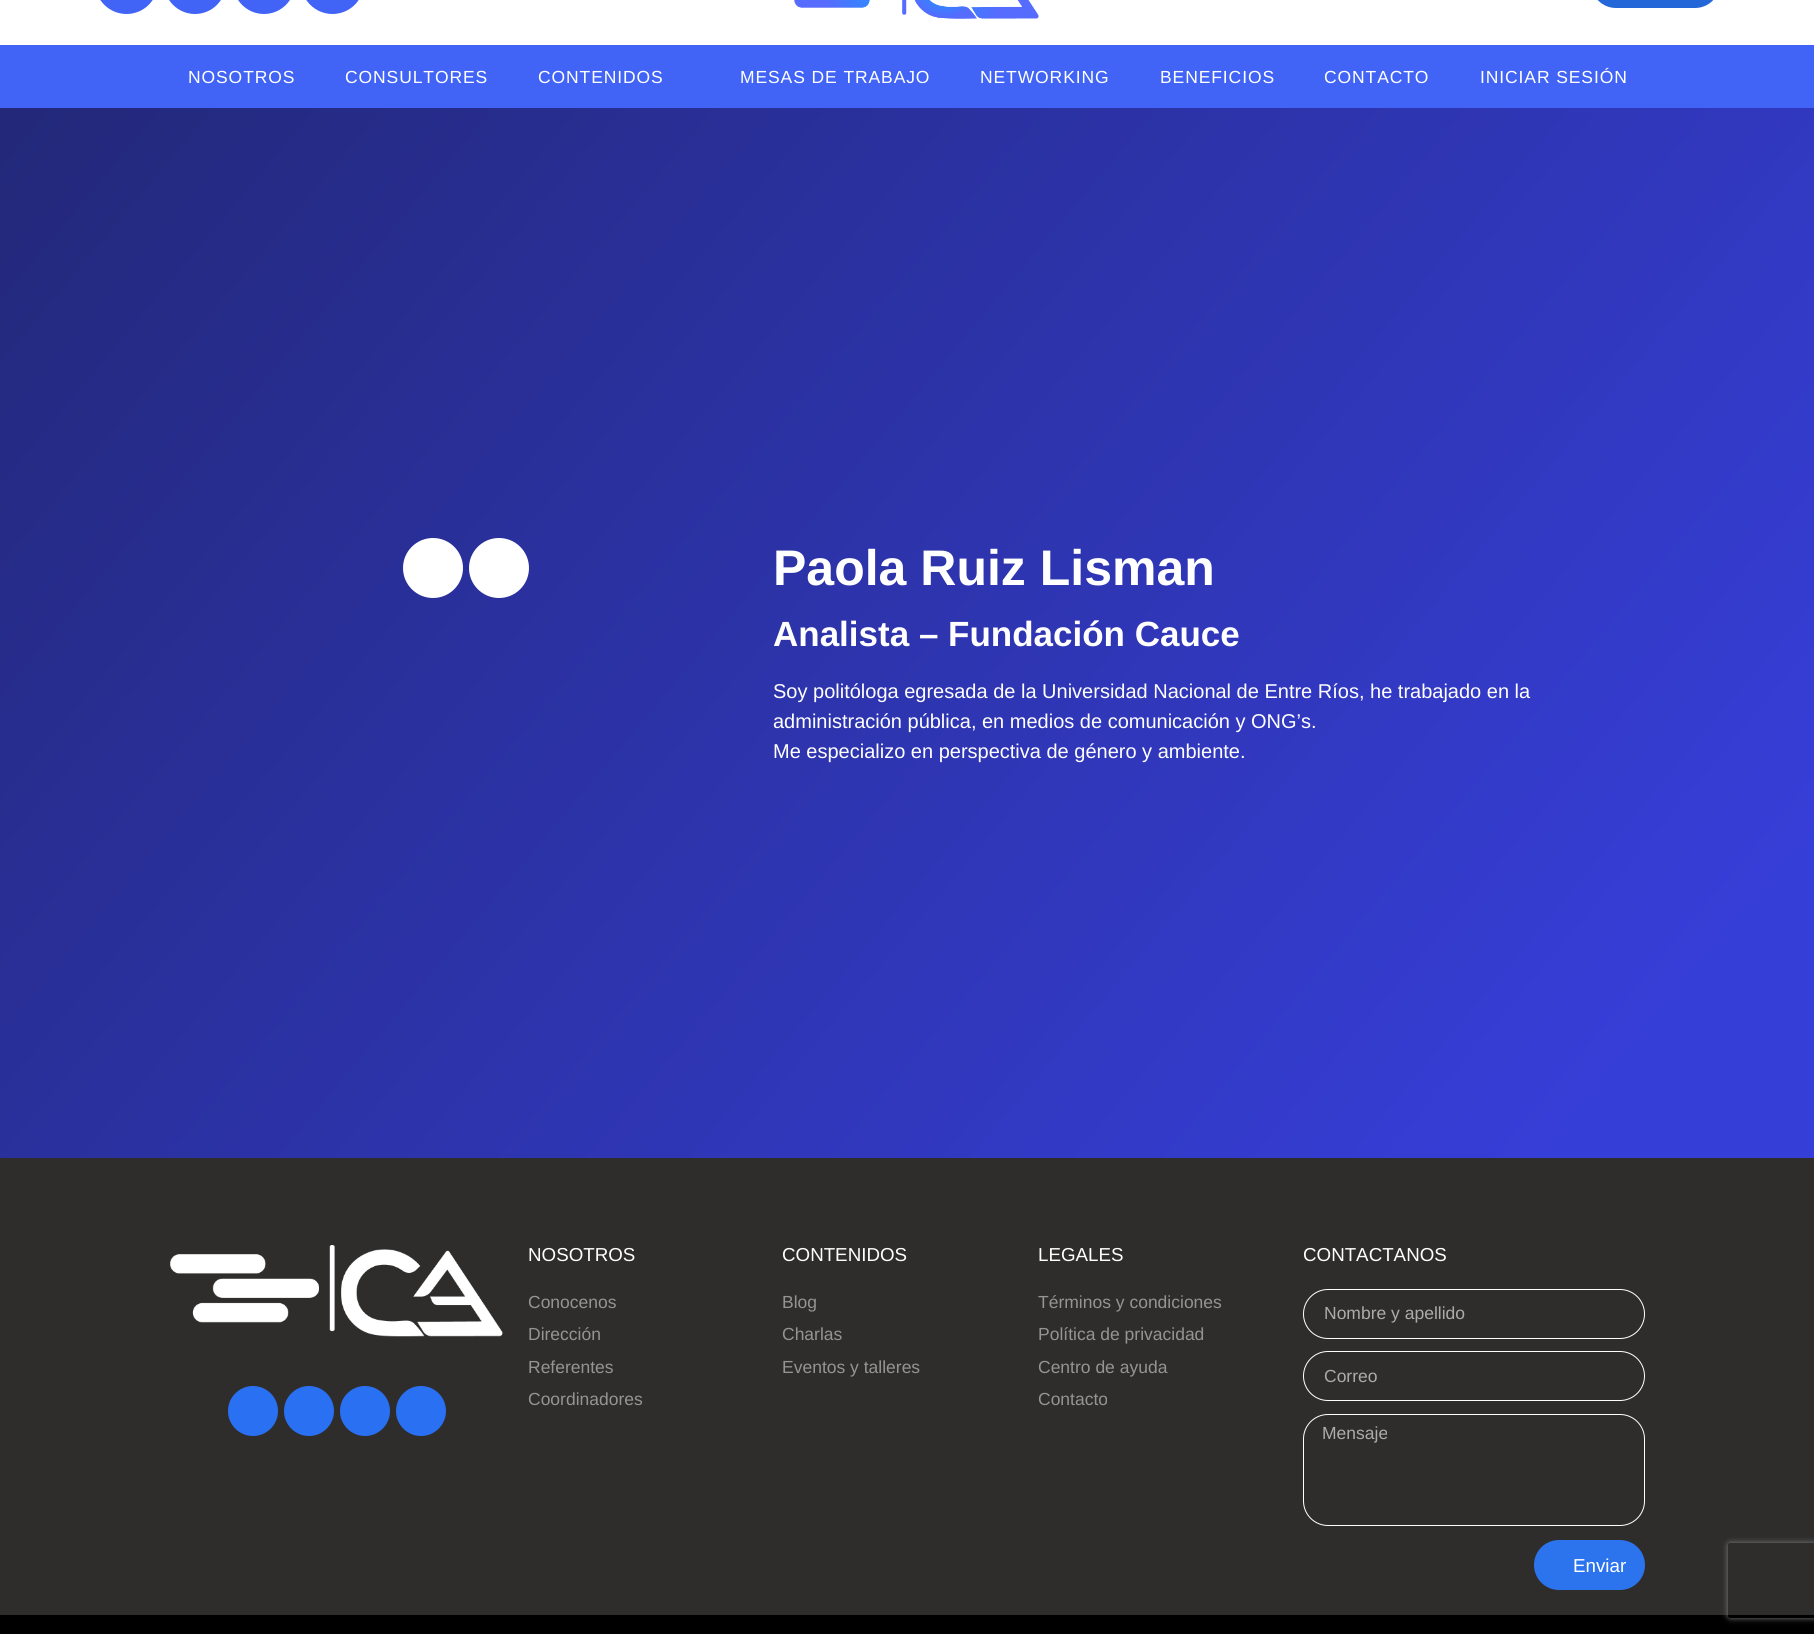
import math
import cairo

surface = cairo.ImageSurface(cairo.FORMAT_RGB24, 1814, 1634)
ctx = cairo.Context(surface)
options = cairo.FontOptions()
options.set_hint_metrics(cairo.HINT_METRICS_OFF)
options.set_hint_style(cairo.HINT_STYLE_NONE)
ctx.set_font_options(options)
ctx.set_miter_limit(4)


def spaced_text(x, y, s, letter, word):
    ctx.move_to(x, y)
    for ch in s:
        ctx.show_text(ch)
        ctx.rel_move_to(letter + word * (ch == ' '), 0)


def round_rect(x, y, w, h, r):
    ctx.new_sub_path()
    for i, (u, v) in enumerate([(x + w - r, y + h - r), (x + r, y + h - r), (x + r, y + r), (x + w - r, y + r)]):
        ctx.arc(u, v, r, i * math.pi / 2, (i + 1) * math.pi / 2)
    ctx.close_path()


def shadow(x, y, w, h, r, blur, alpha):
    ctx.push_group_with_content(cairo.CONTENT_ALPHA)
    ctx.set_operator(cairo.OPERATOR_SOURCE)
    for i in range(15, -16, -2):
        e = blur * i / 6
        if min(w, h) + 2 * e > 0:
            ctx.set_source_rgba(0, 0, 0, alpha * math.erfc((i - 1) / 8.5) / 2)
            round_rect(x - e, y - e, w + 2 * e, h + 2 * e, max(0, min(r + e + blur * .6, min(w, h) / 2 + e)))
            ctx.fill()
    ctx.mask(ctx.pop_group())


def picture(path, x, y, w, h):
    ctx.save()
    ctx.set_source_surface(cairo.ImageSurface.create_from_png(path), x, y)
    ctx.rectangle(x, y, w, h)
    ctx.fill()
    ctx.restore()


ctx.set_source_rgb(1, 1, 1)
ctx.paint()
ctx.set_source_rgb(0.255, 0.392, 0.965)
round_rect(95, -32, 63, 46, 31.5)
ctx.fill()
round_rect(164, -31, 62, 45, 31)
ctx.fill()
round_rect(233, -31, 62, 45, 31)
ctx.fill()
round_rect(301, -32, 63, 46, 31.5)
ctx.fill()
picture("img1.png", 794, 0, 245, 19)
ctx.set_source_rgb(0.141, 0.404, 0.847)
round_rect(1591, -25, 129, 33, 25)
ctx.fill()
ctx.set_source_rgb(0.255, 0.392, 0.965)
ctx.rectangle(0, 45, 1814, 63)
ctx.fill()
ctx.select_font_face("Liberation Sans")
ctx.set_font_size(17.5)
ctx.set_source_rgb(1, 1, 1)
spaced_text(188, 83, "NOSOTROS", 0.9, 0)
spaced_text(345, 83, "CONSULTORES", 0.9, 0)
spaced_text(538, 83, "CONTENIDOS", 0.9, 0)
spaced_text(740, 83, "MESAS DE TRABAJO", 0.9, 0)
spaced_text(980, 83, "NETWORKING", 0.9, 0)
spaced_text(1160, 83, "BENEFICIOS", 0.9, 0)
spaced_text(1324, 83, "CONTACTO", 0.9, 0)
spaced_text(1480, 83, "INICIAR SESIÓN", 0.9, 0)
gradient = cairo.LinearGradient(116, -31, 1699, 1296)
gradient.add_color_stop_rgba(0, 0.137, 0.157, 0.475, 1)
gradient.add_color_stop_rgba(0.9, 0.212, 0.243, 0.847, 1)
ctx.set_source(gradient)
ctx.rectangle(0, 108, 1814, 1050)
ctx.fill()
ctx.set_source_rgb(1, 1, 1)
ctx.arc(433, 568, 30, 0, 2 * math.pi)
ctx.fill()
ctx.arc(499, 568, 30, 0, 2 * math.pi)
ctx.fill()
ctx.select_font_face("Liberation Sans", cairo.FONT_SLANT_NORMAL, cairo.FONT_WEIGHT_BOLD)
ctx.set_font_size(50)
ctx.move_to(773, 585)
ctx.show_text("Paola Ruiz Lisman")
ctx.set_font_size(35)
ctx.move_to(773, 646)
ctx.show_text("Analista – Fundación Cauce")
ctx.select_font_face("Liberation Sans")
ctx.set_font_size(20)
ctx.move_to(773, 698)
ctx.show_text("Soy politóloga egresada de la Universidad Nacional de Entre Ríos, he trabajado en la")
ctx.move_to(773, 728)
ctx.show_text("administración pública, en medios de comunicación y ONG’s.")
ctx.move_to(773, 758)
ctx.show_text("Me especializo en perspectiva de género y ambiente.")
ctx.set_source_rgb(0.18, 0.176, 0.173)
ctx.rectangle(0, 1158, 1814, 457)
ctx.fill()
picture("img2.png", 170, 1245, 333, 92)
ctx.set_source_rgb(0.165, 0.439, 0.953)
ctx.arc(253, 1411, 25, 0, 2 * math.pi)
ctx.fill()
ctx.arc(309, 1411, 25, 0, 2 * math.pi)
ctx.fill()
ctx.arc(365, 1411, 25, 0, 2 * math.pi)
ctx.fill()
ctx.arc(421, 1411, 25, 0, 2 * math.pi)
ctx.fill()
ctx.set_font_size(18.75)
ctx.set_source_rgb(1, 1, 1)
ctx.move_to(528, 1261)
ctx.show_text("NOSOTROS")
ctx.set_font_size(17.5)
ctx.set_source_rgb(0.58, 0.58, 0.576)
ctx.move_to(528, 1308)
ctx.show_text("Conocenos")
ctx.move_to(528, 1340)
ctx.show_text("Dirección")
ctx.move_to(528, 1373)
ctx.show_text("Referentes")
ctx.move_to(528, 1405)
ctx.show_text("Coordinadores")
ctx.set_font_size(18.75)
ctx.set_source_rgb(1, 1, 1)
ctx.move_to(782, 1261)
ctx.show_text("CONTENIDOS")
ctx.set_font_size(17.5)
ctx.set_source_rgb(0.58, 0.58, 0.576)
ctx.move_to(782, 1308)
ctx.show_text("Blog")
ctx.move_to(782, 1340)
ctx.show_text("Charlas")
ctx.move_to(782, 1373)
ctx.show_text("Eventos y talleres")
ctx.set_font_size(18.75)
ctx.set_source_rgb(1, 1, 1)
ctx.move_to(1038, 1261)
ctx.show_text("LEGALES")
ctx.set_font_size(17.5)
ctx.set_source_rgb(0.58, 0.58, 0.576)
ctx.move_to(1038, 1308)
ctx.show_text("Términos y condiciones")
ctx.move_to(1038, 1340)
ctx.show_text("Política de privacidad")
ctx.move_to(1038, 1373)
ctx.show_text("Centro de ayuda")
ctx.move_to(1038, 1405)
ctx.show_text("Contacto")
ctx.set_font_size(18.75)
ctx.set_source_rgb(1, 1, 1)
ctx.move_to(1303, 1261)
ctx.show_text("CONTACTANOS")
round_rect(1303.5, 1289.5, 341, 49, 24.5)
ctx.set_line_width(1)
ctx.stroke()
ctx.set_font_size(17.5)
ctx.set_source_rgb(0.671, 0.671, 0.671)
ctx.move_to(1324, 1319)
ctx.show_text("Nombre y apellido")
round_rect(1303.5, 1351.5, 341, 49, 24.5)
ctx.set_source_rgb(1, 1, 1)
ctx.stroke()
ctx.set_source_rgb(0.671, 0.671, 0.671)
ctx.move_to(1324, 1382)
ctx.show_text("Correo")
round_rect(1303.5, 1414.5, 341, 111, 24.5)
ctx.set_source_rgb(1, 1, 1)
ctx.stroke()
ctx.set_source_rgb(0.671, 0.671, 0.671)
ctx.move_to(1322, 1439)
ctx.show_text("Mensaje")
ctx.set_source_rgb(0.173, 0.455, 0.929)
round_rect(1534, 1540, 111, 50, 25)
ctx.fill()
ctx.set_font_size(18.75)
ctx.set_source_rgb(1, 1, 1)
ctx.move_to(1573, 1572)
ctx.show_text("Enviar")
ctx.set_source_rgb(0, 0, 0)
ctx.rectangle(0, 1615, 1814, 19)
ctx.fill()
ctx.save()
ctx.set_fill_rule(cairo.FILL_RULE_EVEN_ODD)
ctx.new_path()
ctx.move_to(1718, 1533)
ctx.line_to(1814, 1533)
ctx.line_to(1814, 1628)
ctx.line_to(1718, 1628)
ctx.close_path()
ctx.move_to(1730.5, 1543)
ctx.line_to(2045.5, 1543)
ctx.curve_to(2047, 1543, 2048, 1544, 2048, 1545.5)
ctx.line_to(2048, 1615.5)
ctx.curve_to(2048, 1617, 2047, 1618, 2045.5, 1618)
ctx.line_to(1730.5, 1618)
ctx.curve_to(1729, 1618, 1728, 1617, 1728, 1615.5)
ctx.line_to(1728, 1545.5)
ctx.curve_to(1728, 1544, 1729, 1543, 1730.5, 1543)
ctx.close_path()
ctx.clip()
ctx.set_source_rgb(0.502, 0.502, 0.502)
shadow(1728, 1543, 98, 75, 2.5, 3, 1)
ctx.restore()
surface.write_to_png("page.png")
